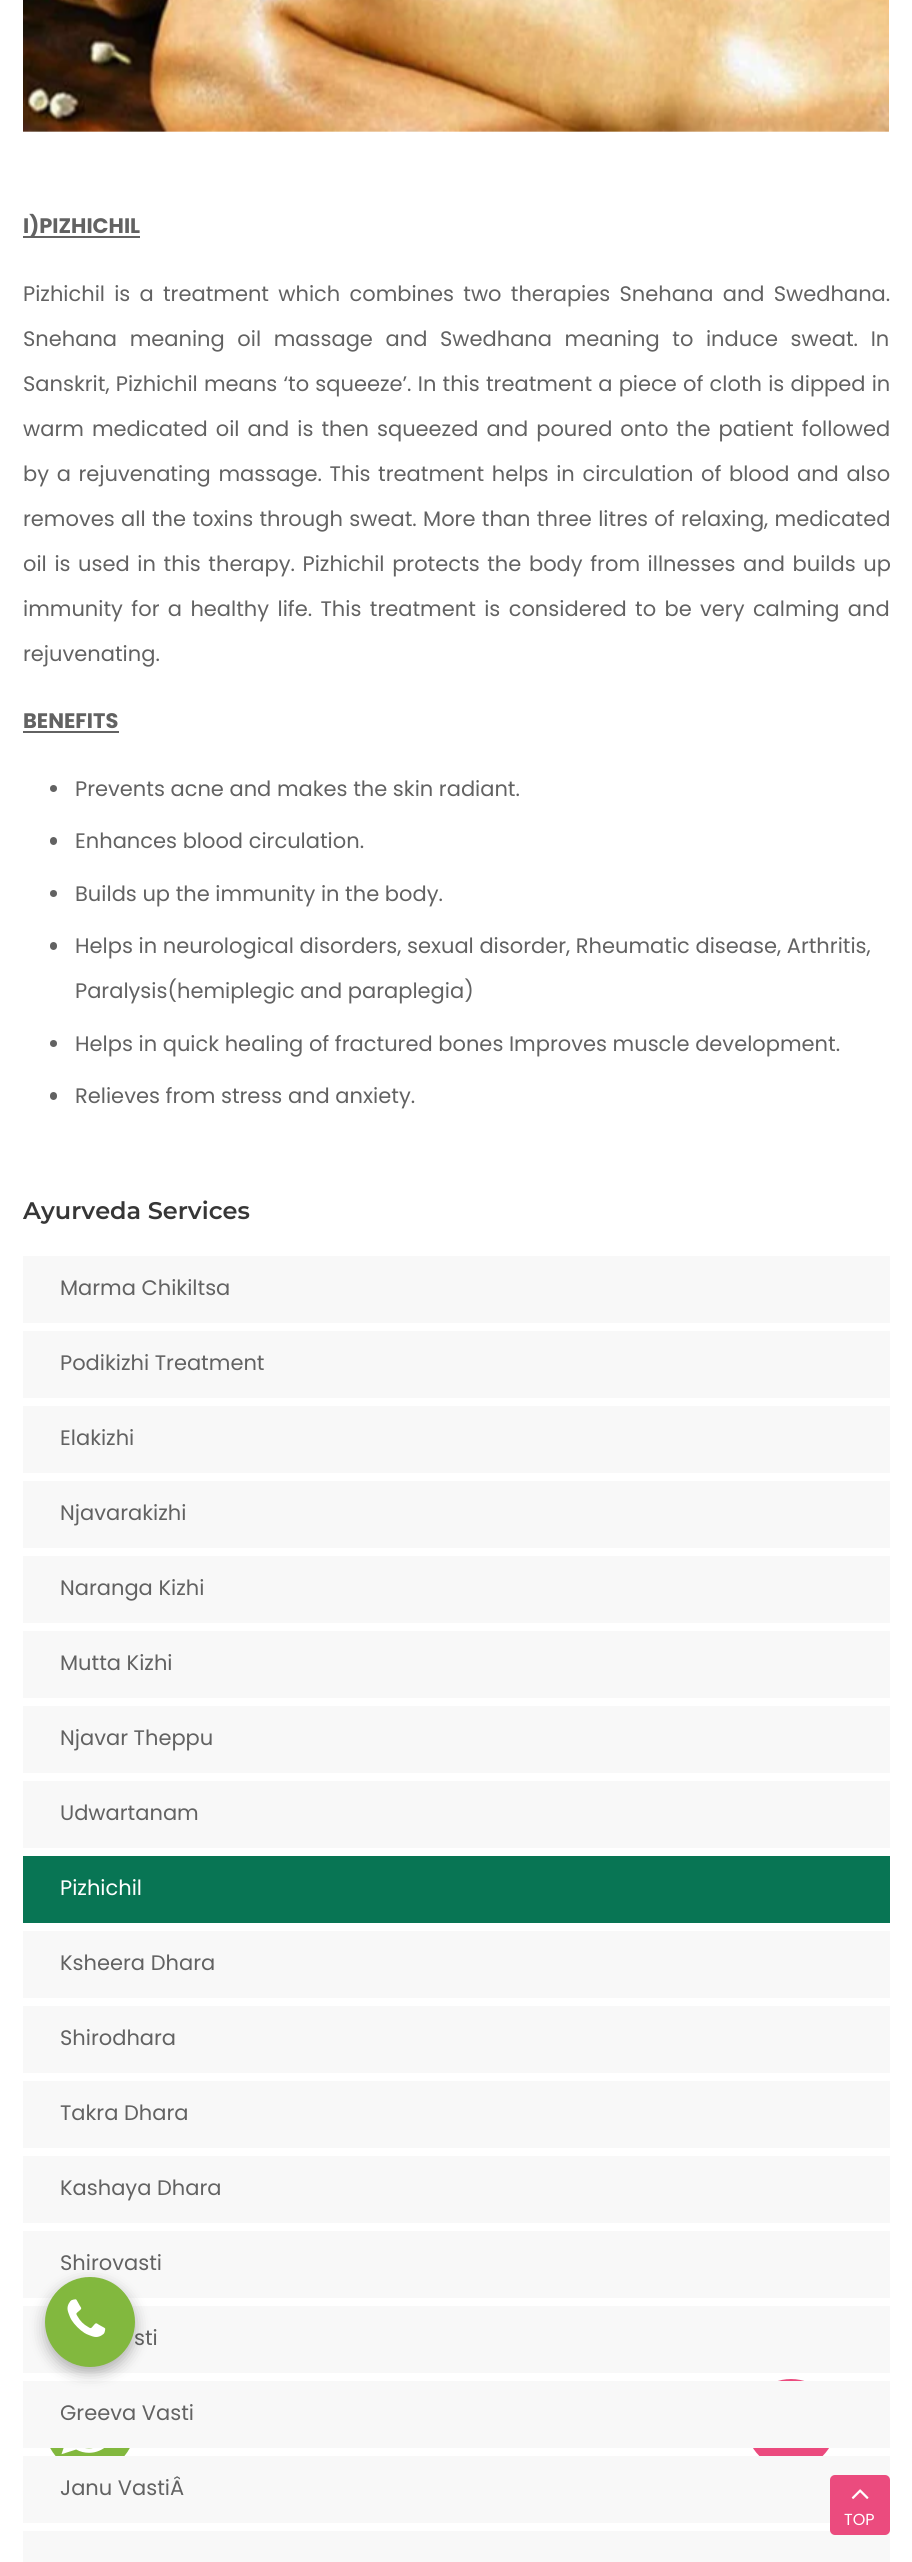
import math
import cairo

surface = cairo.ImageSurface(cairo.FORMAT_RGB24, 912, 2562)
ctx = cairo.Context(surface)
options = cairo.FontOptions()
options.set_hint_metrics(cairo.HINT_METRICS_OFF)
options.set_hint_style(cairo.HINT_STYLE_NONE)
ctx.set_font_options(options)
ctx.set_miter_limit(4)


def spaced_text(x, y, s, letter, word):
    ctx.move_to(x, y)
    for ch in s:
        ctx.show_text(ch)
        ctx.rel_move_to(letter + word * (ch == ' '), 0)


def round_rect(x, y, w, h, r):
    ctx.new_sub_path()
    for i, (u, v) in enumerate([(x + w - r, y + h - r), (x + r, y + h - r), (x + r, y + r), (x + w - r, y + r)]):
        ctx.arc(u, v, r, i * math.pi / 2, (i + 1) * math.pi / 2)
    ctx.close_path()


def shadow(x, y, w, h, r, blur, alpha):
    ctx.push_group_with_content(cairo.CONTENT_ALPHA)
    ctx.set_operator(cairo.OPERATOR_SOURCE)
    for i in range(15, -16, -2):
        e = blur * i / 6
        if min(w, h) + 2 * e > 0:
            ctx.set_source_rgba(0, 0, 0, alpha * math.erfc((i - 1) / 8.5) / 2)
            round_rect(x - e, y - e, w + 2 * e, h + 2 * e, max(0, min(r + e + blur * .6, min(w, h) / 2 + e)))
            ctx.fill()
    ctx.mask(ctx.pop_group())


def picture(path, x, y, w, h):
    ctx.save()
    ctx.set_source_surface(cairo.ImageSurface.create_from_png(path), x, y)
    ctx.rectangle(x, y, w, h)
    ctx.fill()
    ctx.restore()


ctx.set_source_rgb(1, 1, 1)
ctx.paint()
picture("img1.png", 23, 0, 866, 132)
ctx.set_source_rgb(0.384, 0.384, 0.384)
ctx.rectangle(23, 236, 117, 2)
ctx.fill()
ctx.select_font_face("Poppins", cairo.FONT_SLANT_NORMAL, cairo.FONT_WEIGHT_BOLD)
ctx.set_font_size(21)
ctx.move_to(23, 233)
ctx.show_text("I)PIZHICHIL")
ctx.select_font_face("Poppins")
spaced_text(23, 301, "Pizhichil is a treatment which combines two therapies Snehana and Swedhana.", 0, 3.6)
spaced_text(23, 346, "Snehana meaning oil massage and Swedhana meaning to induce sweat. In", 0, 7)
spaced_text(23, 391, "Sanskrit, Pizhichil means ‘to squeeze’. In this treatment a piece of cloth is dipped in", 0, 0.6)
spaced_text(23, 436, "warm medicated oil and is then squeezed and poured onto the patient followed", 0, 2.4)
spaced_text(23, 481, "by a rejuvenating massage. This treatment helps in circulation of blood and also", 0, 2)
spaced_text(23, 526, "removes all the toxins through sweat. More than three litres of relaxing, medicated", 0, 0.75)
spaced_text(23, 571, "oil is used in this therapy. Pizhichil protects the body from illnesses and builds up", 0, 2)
spaced_text(23, 616, "immunity for a healthy life. This treatment is considered to be very calming and", 0, 2.75)
ctx.move_to(23, 661)
ctx.show_text("rejuvenating.")
ctx.select_font_face("Poppins", cairo.FONT_SLANT_NORMAL, cairo.FONT_WEIGHT_BOLD)
ctx.move_to(23, 728)
ctx.show_text("BENEFITS")
ctx.rectangle(23, 731, 96, 2)
ctx.fill()
ctx.arc(53.5, 788.5, 3.5, 0, 2 * math.pi)
ctx.fill()
ctx.select_font_face("Poppins")
ctx.move_to(75, 796)
ctx.show_text("Prevents acne and makes the skin radiant.")
round_rect(50, 837, 7, 8, 3.5)
ctx.fill()
ctx.move_to(75, 848)
ctx.show_text("Enhances blood circulation.")
ctx.new_path()
ctx.arc(53.5, 893.5, 3.5, 0, 2 * math.pi)
ctx.fill()
ctx.move_to(75, 901)
ctx.show_text("Builds up the immunity in the body.")
round_rect(50, 942, 7, 8, 3.5)
ctx.fill()
ctx.move_to(75, 953)
ctx.show_text("Helps in neurological disorders, sexual disorder, Rheumatic disease, Arthritis,")
ctx.move_to(75, 998)
ctx.show_text("Paralysis(hemiplegic and paraplegia)")
ctx.new_path()
ctx.arc(53.5, 1043.5, 3.5, 0, 2 * math.pi)
ctx.fill()
ctx.move_to(75, 1051)
ctx.show_text("Helps in quick healing of fractured bones Improves muscle development.")
round_rect(50, 1092, 7, 8, 3.5)
ctx.fill()
ctx.move_to(75, 1103)
ctx.show_text("Relieves from stress and anxiety.")
ctx.select_font_face("Montserrat SemiBold")
ctx.set_font_size(24)
ctx.set_source_rgb(0.212, 0.212, 0.212)
ctx.move_to(23, 1219)
ctx.show_text("Ayurveda Services")
ctx.set_source_rgb(0.969, 0.969, 0.969)
ctx.rectangle(23, 1256, 867, 67)
ctx.fill()
ctx.select_font_face("Poppins")
ctx.set_font_size(21)
ctx.set_source_rgb(0.384, 0.384, 0.384)
ctx.move_to(60, 1295)
ctx.show_text("Marma Chikiltsa")
ctx.set_source_rgb(0.969, 0.969, 0.969)
ctx.rectangle(23, 1331, 867, 67)
ctx.fill()
ctx.set_source_rgb(0.384, 0.384, 0.384)
ctx.move_to(60, 1370)
ctx.show_text("Podikizhi Treatment")
ctx.set_source_rgb(0.969, 0.969, 0.969)
ctx.rectangle(23, 1406, 867, 67)
ctx.fill()
ctx.set_source_rgb(0.384, 0.384, 0.384)
ctx.move_to(60, 1445)
ctx.show_text("Elakizhi")
ctx.set_source_rgb(0.969, 0.969, 0.969)
ctx.rectangle(23, 1481, 867, 67)
ctx.fill()
ctx.set_source_rgb(0.384, 0.384, 0.384)
ctx.move_to(60, 1520)
ctx.show_text("Njavarakizhi")
ctx.set_source_rgb(0.969, 0.969, 0.969)
ctx.rectangle(23, 1556, 867, 67)
ctx.fill()
ctx.set_source_rgb(0.384, 0.384, 0.384)
ctx.move_to(60, 1595)
ctx.show_text("Naranga Kizhi")
ctx.set_source_rgb(0.969, 0.969, 0.969)
ctx.rectangle(23, 1631, 867, 67)
ctx.fill()
ctx.set_source_rgb(0.384, 0.384, 0.384)
ctx.move_to(60, 1670)
ctx.show_text("Mutta Kizhi")
ctx.set_source_rgb(0.969, 0.969, 0.969)
ctx.rectangle(23, 1706, 867, 67)
ctx.fill()
ctx.set_source_rgb(0.384, 0.384, 0.384)
ctx.move_to(60, 1745)
ctx.show_text("Njavar Theppu")
ctx.set_source_rgb(0.969, 0.969, 0.969)
ctx.rectangle(23, 1781, 867, 67)
ctx.fill()
ctx.set_source_rgb(0.384, 0.384, 0.384)
ctx.move_to(60, 1820)
ctx.show_text("Udwartanam")
ctx.set_source_rgb(0.035, 0.459, 0.329)
ctx.rectangle(23, 1856, 867, 67)
ctx.fill()
ctx.set_source_rgb(1, 1, 1)
ctx.move_to(60, 1895)
ctx.show_text("Pizhichil")
ctx.set_source_rgb(0.969, 0.969, 0.969)
ctx.rectangle(23, 1931, 867, 67)
ctx.fill()
ctx.set_source_rgb(0.384, 0.384, 0.384)
ctx.move_to(60, 1970)
ctx.show_text("Ksheera Dhara")
ctx.set_source_rgb(0.969, 0.969, 0.969)
ctx.rectangle(23, 2006, 867, 67)
ctx.fill()
ctx.set_source_rgb(0.384, 0.384, 0.384)
ctx.move_to(60, 2045)
ctx.show_text("Shirodhara")
ctx.set_source_rgb(0.969, 0.969, 0.969)
ctx.rectangle(23, 2081, 867, 67)
ctx.fill()
ctx.set_source_rgb(0.384, 0.384, 0.384)
ctx.move_to(60, 2120)
ctx.show_text("Takra Dhara")
ctx.set_source_rgb(0.969, 0.969, 0.969)
ctx.rectangle(23, 2156, 867, 67)
ctx.fill()
ctx.set_source_rgb(0.384, 0.384, 0.384)
ctx.move_to(60, 2195)
ctx.show_text("Kashaya Dhara")
ctx.set_source_rgb(0.969, 0.969, 0.969)
ctx.rectangle(23, 2231, 867, 67)
ctx.fill()
ctx.set_source_rgb(0.384, 0.384, 0.384)
ctx.move_to(60, 2270)
ctx.show_text("Shirovasti")
ctx.set_source_rgb(0.969, 0.969, 0.969)
ctx.rectangle(23, 2306, 867, 67)
ctx.fill()
ctx.set_source_rgb(0.384, 0.384, 0.384)
ctx.move_to(134, 2345)
ctx.show_text("sti")
ctx.set_source_rgb(0.51, 0.722, 0.243)
ctx.new_path()
ctx.arc(90, 2427, 45, 0, 2 * math.pi)
ctx.fill()
ctx.set_source_rgb(0.918, 0.294, 0.494)
ctx.arc(791, 2424, 45, 0, 2 * math.pi)
ctx.fill()
ctx.set_source_rgb(0.969, 0.969, 0.969)
ctx.rectangle(23, 2381, 867, 67)
ctx.fill()
ctx.set_source_rgb(0.384, 0.384, 0.384)
ctx.move_to(60, 2420)
ctx.show_text("Greeva Vasti")
ctx.set_source_rgb(0.969, 0.969, 0.969)
ctx.rectangle(23, 2456, 867, 67)
ctx.fill()
ctx.set_source_rgb(0.384, 0.384, 0.384)
ctx.move_to(60, 2495)
ctx.show_text("Janu VastiÂ")
ctx.set_source_rgb(0.969, 0.969, 0.969)
ctx.rectangle(23, 2531, 867, 31)
ctx.fill()
ctx.set_source_rgb(0, 0, 0)
shadow(45, 2283, 90, 90, 45, 7.5, 0.3)
ctx.set_source_rgb(0.51, 0.722, 0.243)
ctx.arc(90, 2322, 45, 0, 2 * math.pi)
ctx.fill()
picture("img2.png", 67, 2299, 39, 38)
picture("img3.png", 61, 2448, 43, 7)
ctx.set_source_rgb(0.918, 0.294, 0.494)
round_rect(830, 2475, 60, 60, 5)
ctx.fill()
picture("img4.png", 851, 2489, 18, 10)
ctx.set_font_size(16)
ctx.set_source_rgb(1, 1, 1)
ctx.move_to(844, 2525)
ctx.show_text("TOP")
surface.write_to_png("page.png")
